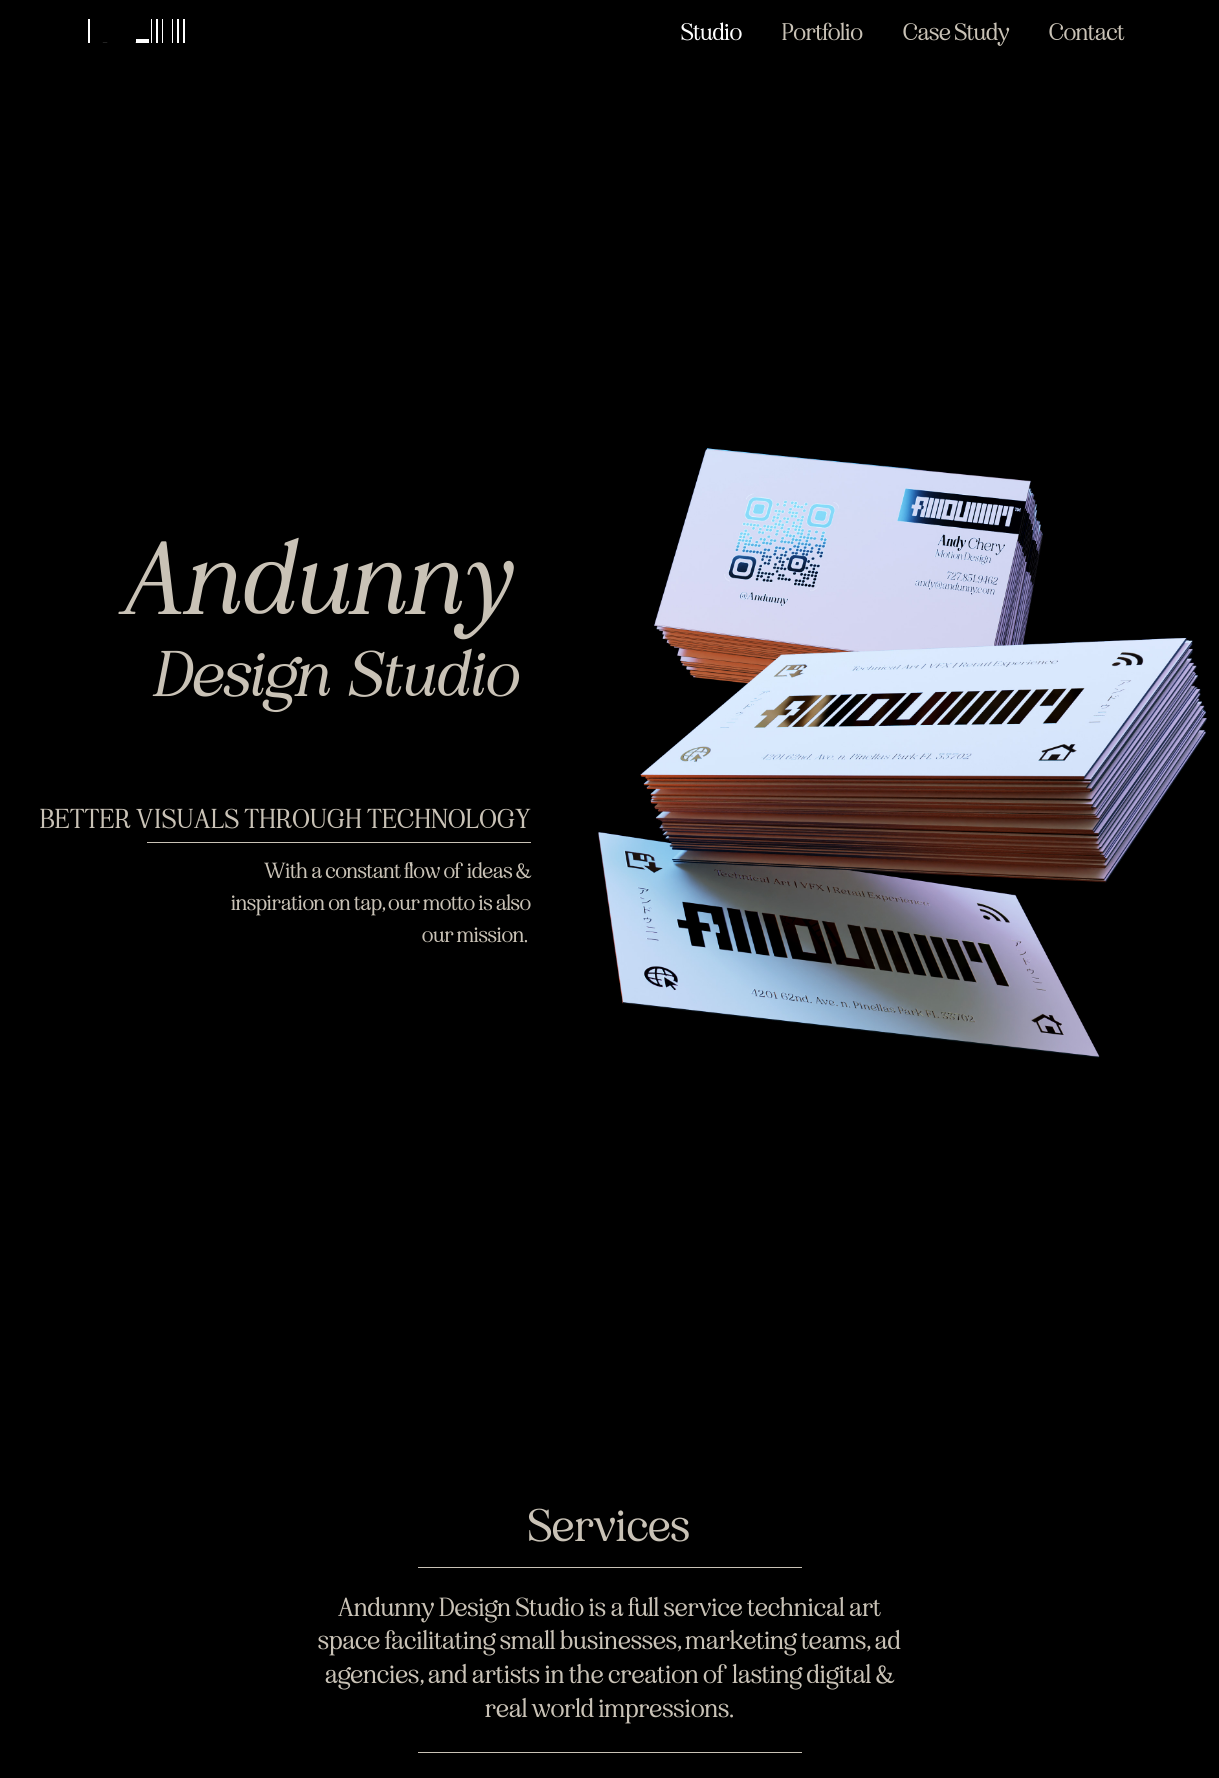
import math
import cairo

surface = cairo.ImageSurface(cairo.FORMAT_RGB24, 1219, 1778)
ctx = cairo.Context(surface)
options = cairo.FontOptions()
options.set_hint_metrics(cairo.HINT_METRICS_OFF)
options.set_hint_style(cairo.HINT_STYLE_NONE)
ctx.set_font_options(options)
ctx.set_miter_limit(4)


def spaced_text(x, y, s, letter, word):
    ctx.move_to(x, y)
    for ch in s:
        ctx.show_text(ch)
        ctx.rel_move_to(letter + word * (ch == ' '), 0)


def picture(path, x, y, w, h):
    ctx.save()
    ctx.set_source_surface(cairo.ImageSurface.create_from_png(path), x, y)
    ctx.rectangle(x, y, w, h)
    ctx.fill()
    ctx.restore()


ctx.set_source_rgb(0, 0, 0)
ctx.paint()
picture("img1.png", 88, 19, 97, 24)
ctx.select_font_face("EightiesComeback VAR")
ctx.set_font_size(22)
ctx.set_source_rgb(1, 1, 1)
ctx.move_to(681, 40)
ctx.show_text("Studio")
ctx.set_source_rgb(0.788, 0.761, 0.714)
ctx.move_to(782, 40)
ctx.show_text("Portfolio")
ctx.move_to(903, 40)
ctx.show_text("Case Study")
ctx.move_to(1049, 40)
ctx.show_text("Contact")
ctx.select_font_face("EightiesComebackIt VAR", cairo.FONT_SLANT_ITALIC)
ctx.set_font_size(95)
spaced_text(118, 614, "Andunny", 0.75, 0)
ctx.set_font_size(59)
spaced_text(152, 696, "Design Studio", 0.75, 6)
ctx.select_font_face("EightiesComeback VAR")
ctx.set_font_size(25)
spaced_text(40, 828, "BETTER VISUALS THROUGH TECHNOLOGY", 0.75, 0)
ctx.rectangle(147, 842, 384, 1)
ctx.fill()
ctx.set_font_size(20)
ctx.move_to(265, 878)
ctx.show_text("With a constant flow of  ideas &")
ctx.move_to(231, 910)
ctx.show_text("inspiration on tap, our motto is also")
ctx.move_to(422, 942)
ctx.show_text("our mission.")
picture("img2.png", 598, 448, 609, 610)
ctx.set_font_size(42)
spaced_text(528, 1541, "Services", 0.5, 0)
ctx.rectangle(418, 1567, 384, 1)
ctx.fill()
ctx.set_font_size(24)
spaced_text(338, 1616, "Andunny Design Studio is a full service technical art", 0.3, 0)
spaced_text(318, 1649, "space facilitating small businesses, marketing teams, ad", 0.3, 0)
spaced_text(325, 1683, "agencies, and artists in the creation of  lasting digital &", 0.3, 0)
spaced_text(485, 1717, "real world impressions.", 0.3, 0)
ctx.rectangle(418, 1752, 384, 1)
ctx.fill()
surface.write_to_png("page.png")
